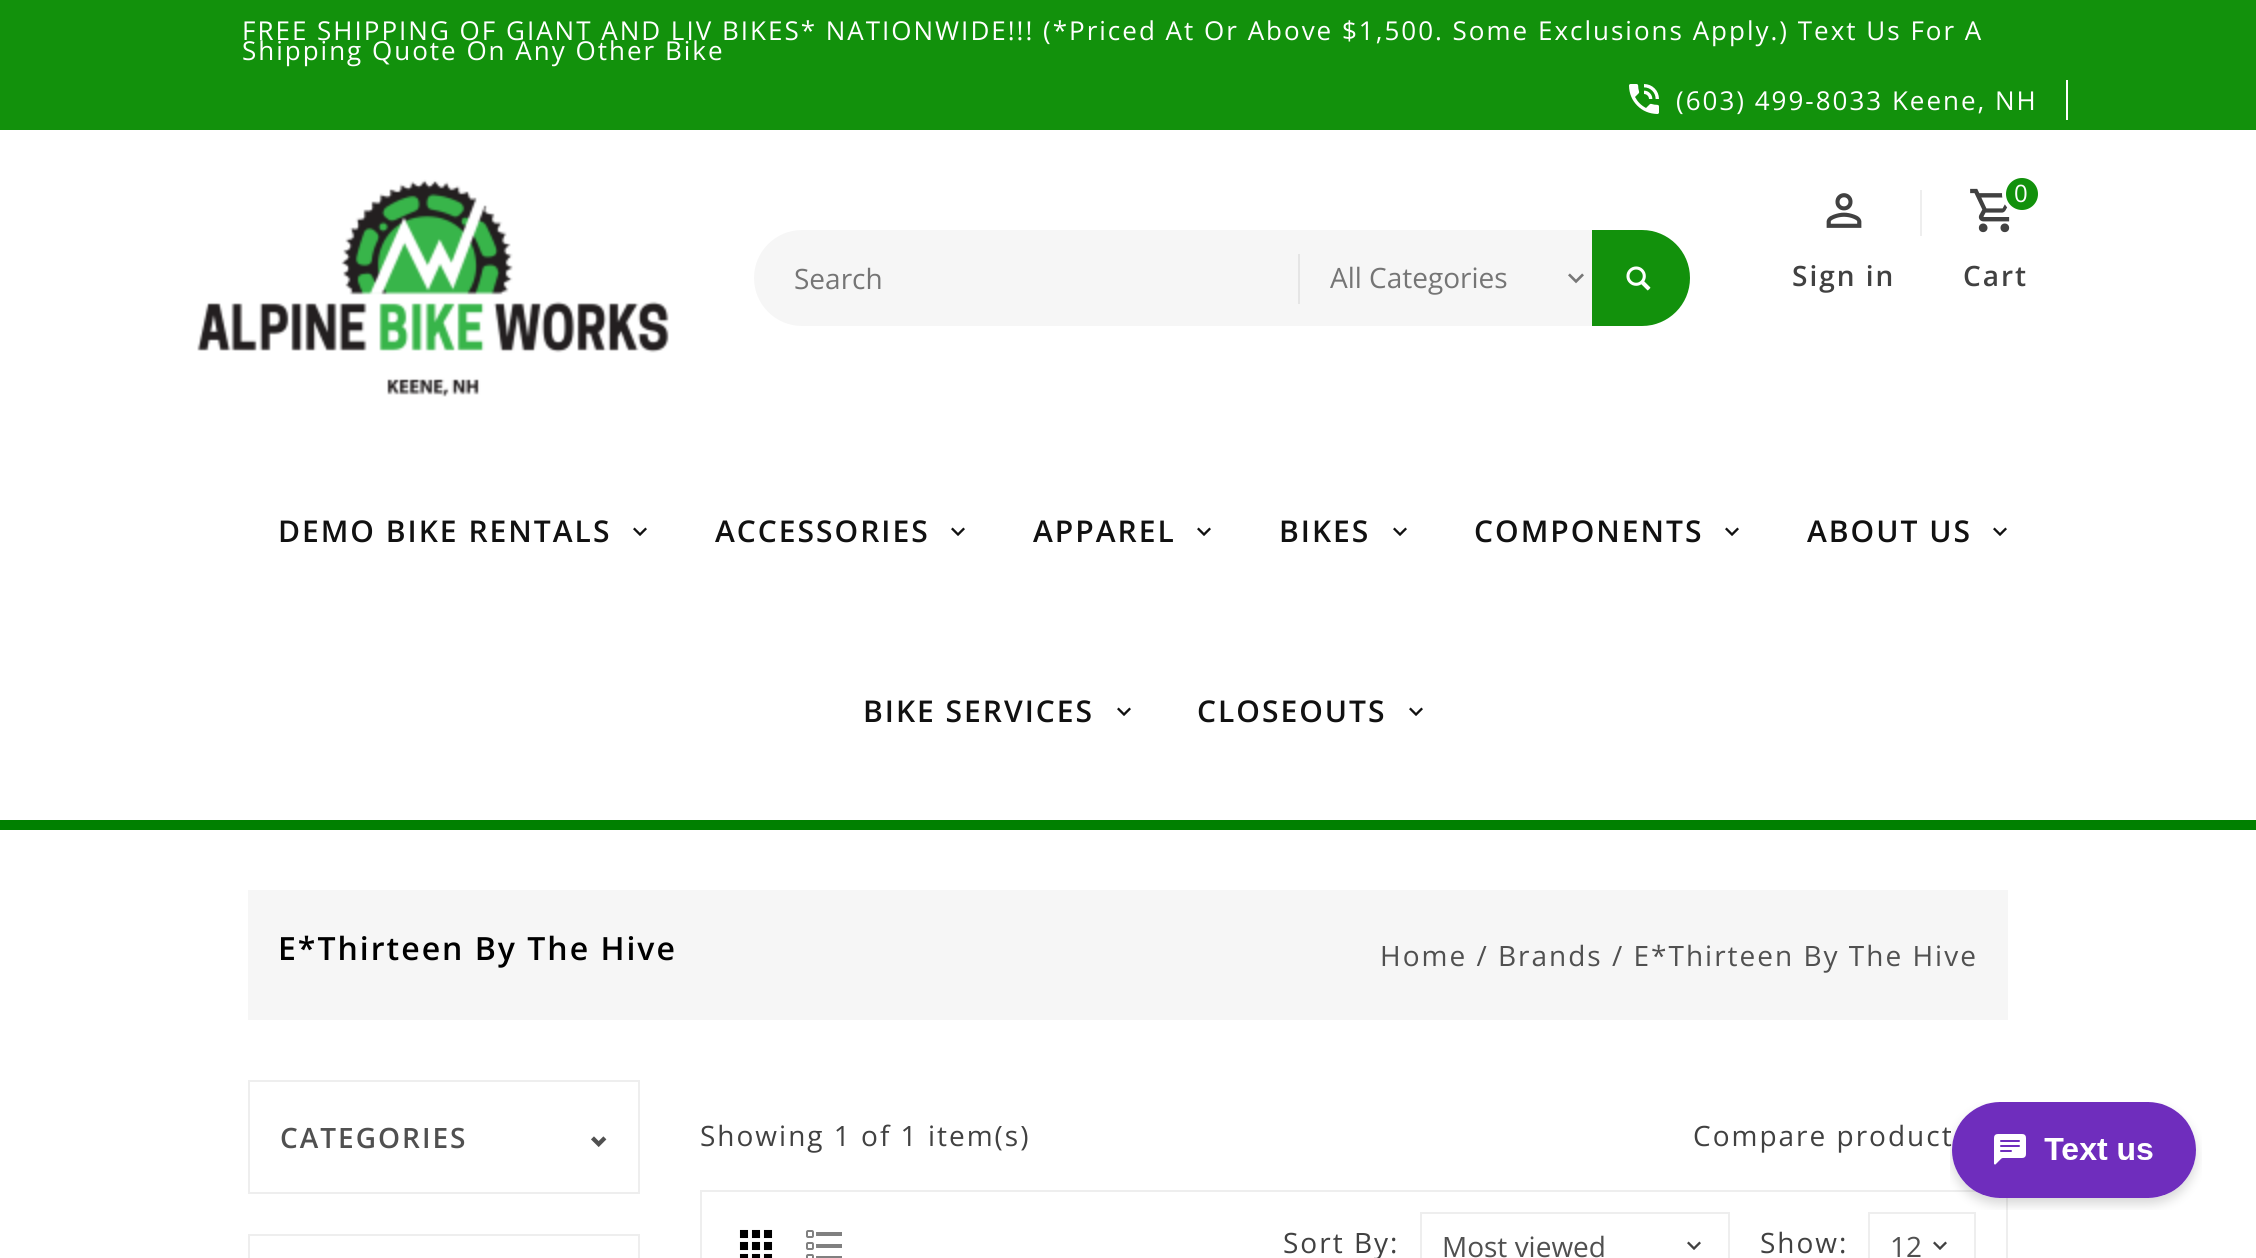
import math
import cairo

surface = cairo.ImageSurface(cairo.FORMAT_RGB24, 2256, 1258)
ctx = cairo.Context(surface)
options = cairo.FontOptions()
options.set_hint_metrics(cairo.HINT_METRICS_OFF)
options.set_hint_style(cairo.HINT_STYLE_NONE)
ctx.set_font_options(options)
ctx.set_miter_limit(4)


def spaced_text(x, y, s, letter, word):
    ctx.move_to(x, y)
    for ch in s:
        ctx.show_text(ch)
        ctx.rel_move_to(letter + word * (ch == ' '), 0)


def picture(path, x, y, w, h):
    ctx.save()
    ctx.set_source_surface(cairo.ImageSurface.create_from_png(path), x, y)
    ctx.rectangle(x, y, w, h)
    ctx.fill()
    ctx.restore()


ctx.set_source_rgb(1, 1, 1)
ctx.paint()
ctx.set_source_rgb(0.071, 0.569, 0.047)
ctx.rectangle(0, 0, 2256, 130)
ctx.fill()
ctx.select_font_face("Open Sans")
ctx.set_font_size(26)
ctx.set_source_rgb(1, 1, 1)
spaced_text(242, 40, "FREE SHIPPING OF GIANT AND LIV BIKES* NATIONWIDE!!! (*Priced At Or Above $1,500. Some Exclusions Apply.) Text Us For A", 2, 0)
spaced_text(242, 60, "Shipping Quote On Any Other Bike", 2, 0)
picture("img1.png", 1629, 84, 30, 30)
spaced_text(1676, 110, "(603) 499-8033 Keene, NH", 2, 0)
ctx.rectangle(2066, 80, 2, 40)
ctx.fill()
picture("img2.png", 197, 179, 472, 218)
ctx.set_source_rgb(0.961, 0.961, 0.961)
ctx.new_path()
ctx.move_to(802, 230)
ctx.line_to(1298, 230)
ctx.line_to(1298, 326)
ctx.line_to(802, 326)
ctx.curve_to(775.5, 326, 754, 304.5, 754, 278)
ctx.curve_to(754, 251.5, 775.5, 230, 802, 230)
ctx.close_path()
ctx.fill()
ctx.set_font_size(28)
ctx.set_source_rgb(0.459, 0.459, 0.459)
ctx.move_to(794, 289)
ctx.show_text("Search")
ctx.set_source_rgb(0.961, 0.961, 0.961)
ctx.rectangle(1298, 230, 294, 96)
ctx.fill()
ctx.set_source_rgb(0.898, 0.898, 0.898)
ctx.rectangle(1298, 254, 2, 50)
ctx.fill()
ctx.set_source_rgb(0.459, 0.459, 0.459)
ctx.move_to(1330, 288)
ctx.show_text("All Categories")
picture("img3.png", 1568, 273, 16, 11)
ctx.set_source_rgb(0.071, 0.569, 0.047)
ctx.new_path()
ctx.move_to(1592, 230)
ctx.line_to(1642, 230)
ctx.curve_to(1668.5, 230, 1690, 251.5, 1690, 278)
ctx.curve_to(1690, 304.5, 1668.5, 326, 1642, 326)
ctx.line_to(1592, 326)
ctx.close_path()
ctx.fill()
picture("img4.png", 1626, 266, 25, 25)
picture("img5.png", 1826, 193, 36, 35)
ctx.set_source_rgb(0.933, 0.933, 0.933)
ctx.rectangle(1920, 190, 2, 46)
ctx.fill()
ctx.select_font_face("Open Sans SemiBold")
ctx.set_source_rgb(0.255, 0.255, 0.255)
spaced_text(1792, 286, "Sign in", 2, 0)
picture("img6.png", 1970, 188, 40, 45)
ctx.set_source_rgb(0.071, 0.569, 0.047)
ctx.arc(2022, 194, 18, 0, 2 * math.pi)
ctx.fill_preserve()
ctx.set_source_rgb(1, 1, 1)
ctx.set_line_width(4)
ctx.stroke()
ctx.select_font_face("Open Sans")
ctx.set_font_size(24)
spaced_text(2014, 202, "0", 2, 0)
ctx.select_font_face("Open Sans SemiBold")
ctx.set_font_size(28)
ctx.set_source_rgb(0.255, 0.255, 0.255)
spaced_text(1963, 286, "Cart", 2, 0)
ctx.set_source_rgb(0, 0.502, 0)
ctx.rectangle(0, 820, 2256, 10)
ctx.fill()
ctx.set_font_size(30)
ctx.set_source_rgb(0.067, 0.067, 0.067)
spaced_text(278, 542, "DEMO BIKE RENTALS", 2, 0)
picture("img7.png", 633, 527, 14, 9)
spaced_text(715, 542, "ACCESSORIES", 2, 0)
picture("img7.png", 951, 527, 14, 9)
spaced_text(1033, 542, "APPAREL", 2, 0)
picture("img7.png", 1197, 527, 14, 9)
spaced_text(1279, 542, "BIKES", 2, 0)
picture("img7.png", 1393, 527, 14, 9)
spaced_text(1474, 542, "COMPONENTS", 2, 0)
picture("img7.png", 1725, 527, 14, 9)
spaced_text(1807, 542, "ABOUT US", 2, 0)
picture("img7.png", 1993, 527, 14, 9)
spaced_text(863, 722, "BIKE SERVICES", 2, 0)
picture("img7.png", 1117, 707, 14, 9)
spaced_text(1197, 722, "CLOSEOUTS", 2, 0)
picture("img7.png", 1409, 707, 14, 9)
ctx.set_source_rgb(0.961, 0.961, 0.961)
ctx.rectangle(248, 890, 1760, 130)
ctx.fill()
ctx.set_font_size(32)
ctx.set_source_rgb(0, 0, 0)
spaced_text(278, 960, "E*Thirteen By The Hive", 2, 0)
ctx.select_font_face("Open Sans")
ctx.set_font_size(28)
ctx.set_source_rgb(0.314, 0.314, 0.314)
spaced_text(1380, 966, "Home / Brands / E*Thirteen By The Hive", 2, 0)
ctx.rectangle(249, 1081, 390, 112)
ctx.set_source_rgb(0.933, 0.933, 0.933)
ctx.set_line_width(2)
ctx.stroke()
ctx.select_font_face("Open Sans SemiBold")
ctx.set_source_rgb(0.314, 0.314, 0.314)
spaced_text(280, 1148, "CATEGORIES", 2, 0)
picture("img8.png", 591, 1136, 16, 11)
ctx.rectangle(249, 1235, 390, 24)
ctx.set_source_rgb(0.933, 0.933, 0.933)
ctx.stroke()
ctx.select_font_face("Open Sans")
ctx.set_source_rgb(0.255, 0.255, 0.255)
spaced_text(700, 1146, "Showing 1 of 1 item(s)", 2, 0)
spaced_text(1693, 1146, "Compare product", 2, 0)
ctx.rectangle(701, 1191, 1306, 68)
ctx.set_source_rgb(0.933, 0.933, 0.933)
ctx.stroke()
picture("img9.png", 739, 1229, 34, 29)
picture("img10.png", 806, 1230, 36, 28)
ctx.set_source_rgb(0.255, 0.255, 0.255)
spaced_text(1283, 1253, "Sort By:", 2, 0)
ctx.rectangle(1421, 1213, 308, 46)
ctx.set_source_rgb(0.933, 0.933, 0.933)
ctx.stroke()
ctx.set_source_rgb(0.314, 0.314, 0.314)
ctx.move_to(1442, 1257)
ctx.show_text("Most viewed")
picture("img11.png", 1687, 1241, 14, 9)
ctx.set_source_rgb(0.255, 0.255, 0.255)
spaced_text(1760, 1253, "Show:", 2, 0)
ctx.rectangle(1869, 1213, 106, 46)
ctx.set_source_rgb(0.933, 0.933, 0.933)
ctx.stroke()
ctx.set_source_rgb(0.314, 0.314, 0.314)
ctx.move_to(1890, 1257)
ctx.show_text("12")
picture("img11.png", 1933, 1241, 14, 9)
picture("img12.png", 1950, 1102, 252, 108)
surface.write_to_png("page.png")
